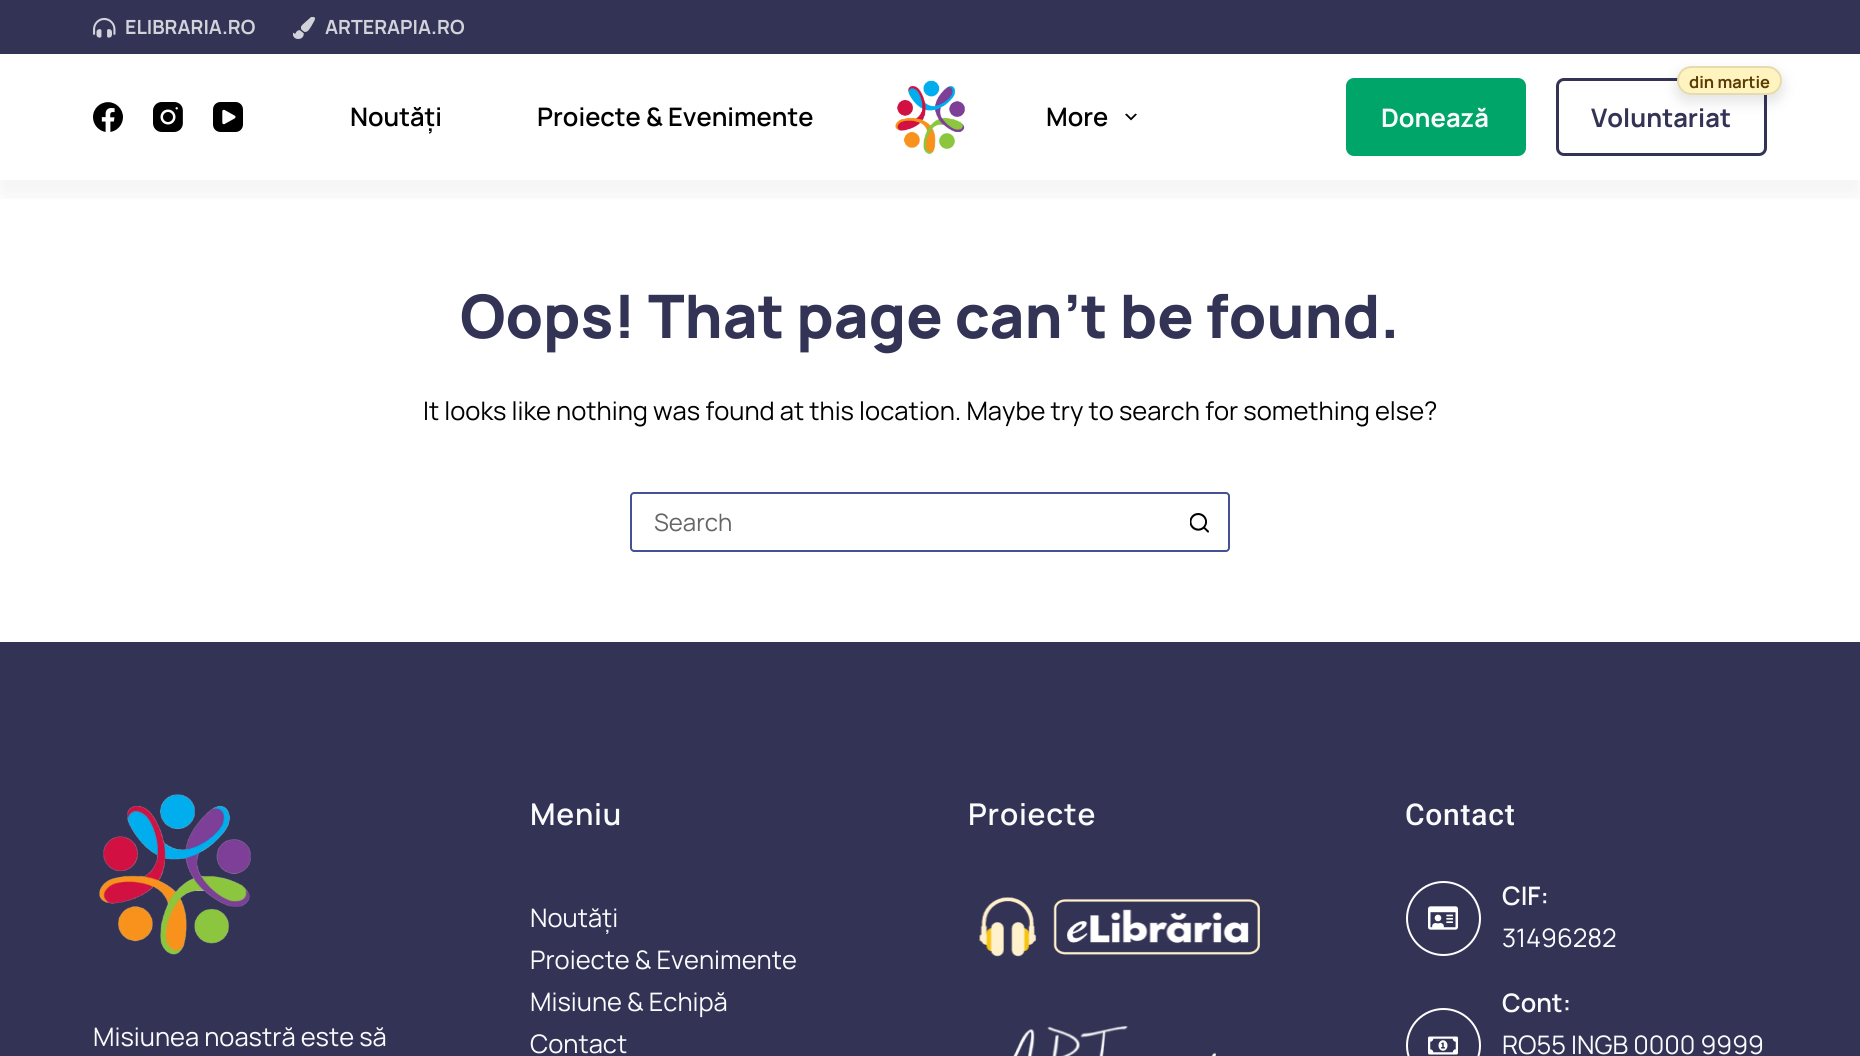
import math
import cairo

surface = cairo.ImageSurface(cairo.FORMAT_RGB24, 1860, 1056)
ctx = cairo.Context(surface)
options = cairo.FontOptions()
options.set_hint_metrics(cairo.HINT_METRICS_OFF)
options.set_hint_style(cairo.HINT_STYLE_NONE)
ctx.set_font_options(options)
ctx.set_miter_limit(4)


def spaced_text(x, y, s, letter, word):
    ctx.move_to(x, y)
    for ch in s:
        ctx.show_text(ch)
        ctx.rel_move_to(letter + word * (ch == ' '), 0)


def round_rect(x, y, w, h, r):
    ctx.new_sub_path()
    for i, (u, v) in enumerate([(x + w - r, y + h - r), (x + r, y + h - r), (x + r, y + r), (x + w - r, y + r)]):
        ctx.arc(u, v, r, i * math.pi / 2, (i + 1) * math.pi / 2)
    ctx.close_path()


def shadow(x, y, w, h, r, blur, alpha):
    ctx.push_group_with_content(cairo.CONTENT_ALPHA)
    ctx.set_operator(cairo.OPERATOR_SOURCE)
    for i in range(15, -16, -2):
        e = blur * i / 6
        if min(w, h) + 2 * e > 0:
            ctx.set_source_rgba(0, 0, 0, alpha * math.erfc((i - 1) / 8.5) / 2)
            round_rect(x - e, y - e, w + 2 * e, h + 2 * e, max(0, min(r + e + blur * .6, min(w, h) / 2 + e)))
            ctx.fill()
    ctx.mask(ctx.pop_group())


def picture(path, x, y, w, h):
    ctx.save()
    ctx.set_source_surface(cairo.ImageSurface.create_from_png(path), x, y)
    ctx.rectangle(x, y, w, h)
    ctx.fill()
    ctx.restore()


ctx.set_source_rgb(1, 1, 1)
ctx.paint()
ctx.save()
ctx.rectangle(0, 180, 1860, 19)
ctx.clip()
ctx.set_source_rgb(0, 0, 0)
shadow(0, 69, 1860, 126, 0, 15, 0.05)
ctx.restore()
round_rect(1557.5, 79.5, 208, 75, 6.5)
ctx.set_source_rgb(0.2, 0.2, 0.337)
ctx.set_line_width(3)
ctx.stroke()
ctx.set_source_rgb(0, 0, 0)
shadow(1677, 72, 105, 29, 14.5, 7.5, 0.12)
ctx.set_source_rgb(0.2, 0.2, 0.337)
ctx.rectangle(0, 0, 1860, 54)
ctx.fill()
picture("img1.png", 93, 17, 23, 21)
ctx.select_font_face("Manrope", cairo.FONT_SLANT_NORMAL, cairo.FONT_WEIGHT_BOLD)
ctx.set_font_size(19.5)
ctx.set_source_rgb(0.824, 0.824, 0.855)
ctx.move_to(125, 34)
ctx.show_text("ELIBRARIA.RO")
picture("img2.png", 293, 17, 22, 22)
ctx.move_to(325, 34)
ctx.show_text("ARTERAPIA.RO")
picture("img3.png", 93, 102, 30, 30)
picture("img4.png", 153, 102, 30, 30)
picture("img5.png", 213, 102, 30, 30)
ctx.select_font_face("Manrope SemiBold")
ctx.set_font_size(25.5)
ctx.set_source_rgb(0, 0, 0)
ctx.move_to(350, 126)
ctx.show_text("Noutăți")
ctx.move_to(537, 126)
ctx.show_text("Proiecte & Evenimente")
picture("img6.png", 895, 80, 70, 74)
ctx.move_to(1046, 126)
ctx.show_text("More")
picture("img7.png", 1125, 113, 12, 8)
ctx.set_source_rgb(0, 0.651, 0.412)
round_rect(1346, 78, 180, 78, 8)
ctx.fill()
ctx.select_font_face("Manrope", cairo.FONT_SLANT_NORMAL, cairo.FONT_WEIGHT_BOLD)
ctx.set_source_rgb(0.98, 0.984, 0.988)
ctx.move_to(1381, 127)
ctx.show_text("Donează")
ctx.set_source_rgb(1, 0.953, 0.749)
round_rect(1677, 66, 105, 29, 14.5)
ctx.fill()
round_rect(1678, 67, 103, 27, 13.5)
ctx.set_source_rgba(0, 0, 0, 0.1)
ctx.set_line_width(2)
ctx.stroke()
ctx.set_font_size(16.5)
ctx.set_source_rgb(0.357, 0.231, 0)
ctx.move_to(1689, 88)
ctx.show_text("din martie")
ctx.set_font_size(25.5)
ctx.set_source_rgb(0.2, 0.2, 0.337)
ctx.move_to(1591, 127)
ctx.show_text("Voluntariat")
ctx.select_font_face("Manrope ExtraBold")
ctx.set_font_size(60)
ctx.move_to(460, 338)
ctx.show_text("Oops! That page can’t be found.")
ctx.select_font_face("Manrope")
ctx.set_font_size(25.5)
ctx.set_source_rgb(0, 0, 0)
ctx.move_to(423, 420)
ctx.show_text("It looks like nothing was found at this location. Maybe try to search for something else?")
ctx.set_source_rgb(0.267, 0.322, 0.58)
ctx.set_fill_rule(cairo.FILL_RULE_EVEN_ODD)
ctx.new_path()
ctx.move_to(634, 492)
ctx.line_to(1170, 492)
ctx.line_to(1170, 552)
ctx.line_to(634, 552)
ctx.curve_to(632, 552, 630, 550, 630, 548)
ctx.line_to(630, 496)
ctx.curve_to(630, 494, 632, 492, 634, 492)
ctx.close_path()
ctx.move_to(634, 494)
ctx.line_to(1170, 494)
ctx.line_to(1170, 550)
ctx.line_to(634, 550)
ctx.curve_to(633, 550, 632, 549, 632, 548)
ctx.line_to(632, 496)
ctx.curve_to(632, 495, 633, 494, 634, 494)
ctx.close_path()
ctx.fill()
ctx.set_font_size(24)
ctx.set_source_rgb(0.4, 0.4, 0.4)
ctx.move_to(654, 531)
ctx.show_text("Search")
ctx.set_source_rgb(0.267, 0.322, 0.58)
ctx.new_path()
ctx.move_to(1170, 492)
ctx.line_to(1226, 492)
ctx.curve_to(1228, 492, 1230, 494, 1230, 496)
ctx.line_to(1230, 548)
ctx.curve_to(1230, 550, 1228, 552, 1226, 552)
ctx.line_to(1170, 552)
ctx.close_path()
ctx.move_to(1170, 494)
ctx.line_to(1226, 494)
ctx.curve_to(1227, 494, 1228, 495, 1228, 496)
ctx.line_to(1228, 548)
ctx.curve_to(1228, 549, 1227, 550, 1226, 550)
ctx.line_to(1170, 550)
ctx.close_path()
ctx.fill()
picture("img8.png", 1190, 513, 19, 20)
ctx.set_source_rgb(0.2, 0.2, 0.337)
ctx.rectangle(0, 642, 1860, 414)
ctx.fill()
picture("img9.png", 99, 794, 152, 161)
ctx.set_font_size(25.5)
ctx.set_source_rgb(0.98, 0.984, 0.988)
ctx.move_to(93, 1046)
ctx.show_text("Misiunea noastră este să")
ctx.select_font_face("Manrope SemiBold")
ctx.set_font_size(30)
spaced_text(530, 825, "Meniu", 0.75, 0)
ctx.select_font_face("Manrope")
ctx.set_font_size(25.5)
ctx.move_to(530, 927)
ctx.show_text("Noutăți")
ctx.move_to(530, 969)
ctx.show_text("Proiecte & Evenimente")
ctx.move_to(530, 1011)
ctx.show_text("Misiune & Echipă")
ctx.move_to(530, 1053)
ctx.show_text("Contact")
ctx.select_font_face("Manrope SemiBold")
ctx.set_font_size(30)
spaced_text(968, 825, "Proiecte", 0.75, 0)
picture("img10.png", 979, 897, 281, 60)
picture("img11.png", 1013, 1026, 203, 30)
ctx.select_font_face("Roboto Medium")
spaced_text(1405, 825, "Contact", 0.75, 0)
ctx.new_path()
ctx.arc(1443.5, 918.5, 36.5, 0, 2 * math.pi)
ctx.set_source_rgb(1, 1, 1)
ctx.stroke()
picture("img12.png", 1428, 906, 30, 24)
ctx.select_font_face("Manrope SemiBold")
ctx.set_font_size(25.5)
ctx.set_source_rgb(0.98, 0.984, 0.988)
ctx.move_to(1502, 905)
ctx.show_text("CIF:")
ctx.select_font_face("Manrope")
ctx.move_to(1502, 947)
ctx.show_text("31496282")
ctx.new_path()
ctx.arc(1443.5, 1045.5, 36.5, 0, 2 * math.pi)
ctx.set_source_rgb(1, 1, 1)
ctx.stroke()
picture("img13.png", 1428, 1036, 30, 19)
ctx.select_font_face("Manrope SemiBold")
ctx.set_source_rgb(0.98, 0.984, 0.988)
ctx.move_to(1502, 1012)
ctx.show_text("Cont:")
ctx.select_font_face("Manrope")
ctx.move_to(1502, 1054)
ctx.show_text("RO55 INGB 0000 9999")
surface.write_to_png("page.png")
